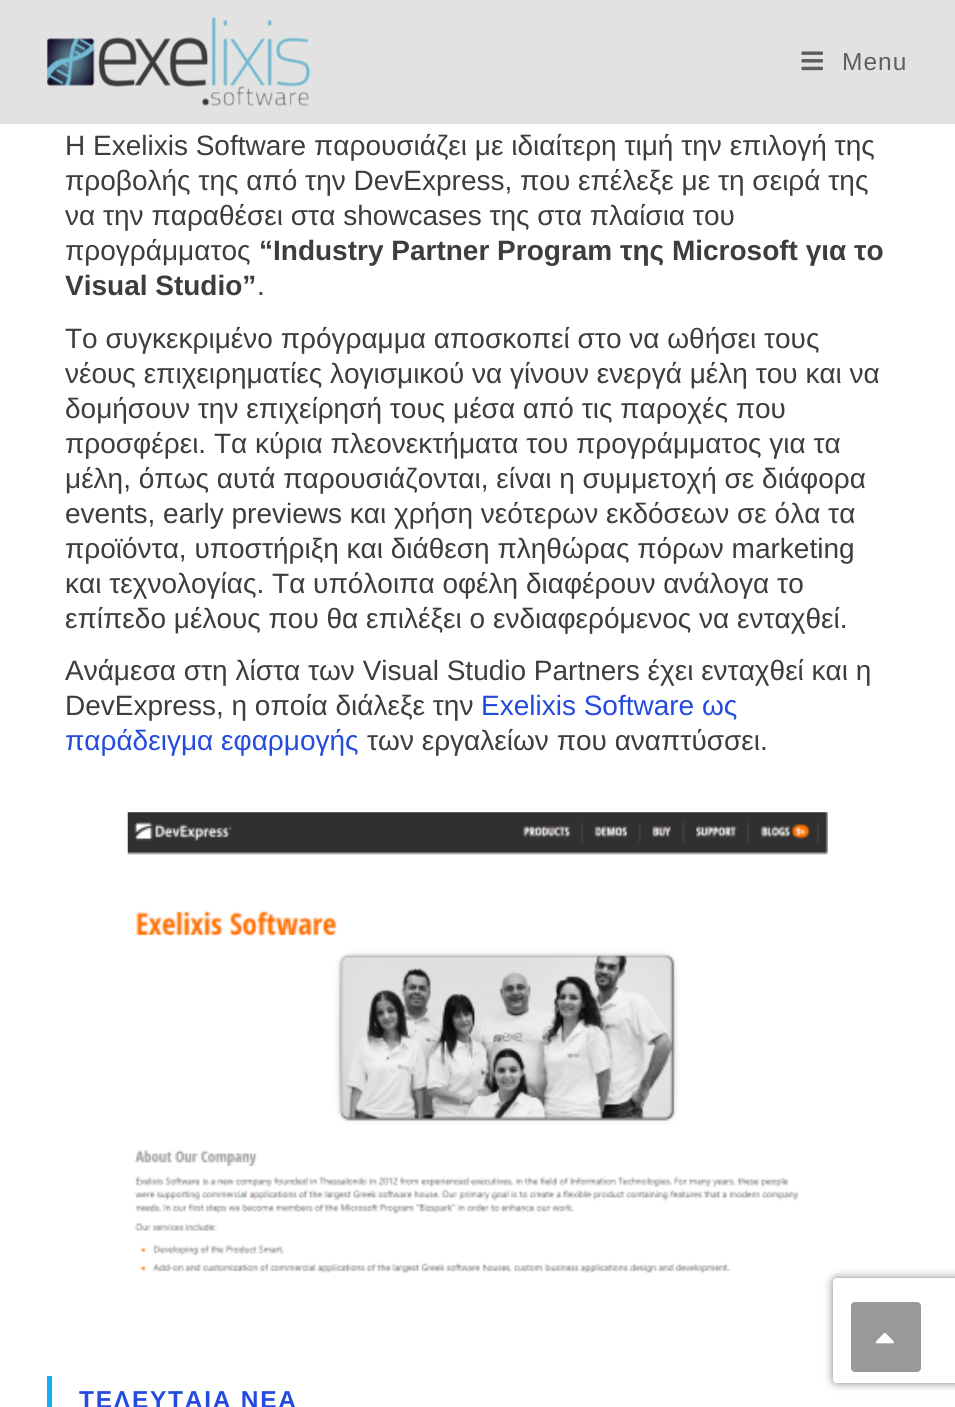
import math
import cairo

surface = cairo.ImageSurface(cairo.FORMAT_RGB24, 955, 1407)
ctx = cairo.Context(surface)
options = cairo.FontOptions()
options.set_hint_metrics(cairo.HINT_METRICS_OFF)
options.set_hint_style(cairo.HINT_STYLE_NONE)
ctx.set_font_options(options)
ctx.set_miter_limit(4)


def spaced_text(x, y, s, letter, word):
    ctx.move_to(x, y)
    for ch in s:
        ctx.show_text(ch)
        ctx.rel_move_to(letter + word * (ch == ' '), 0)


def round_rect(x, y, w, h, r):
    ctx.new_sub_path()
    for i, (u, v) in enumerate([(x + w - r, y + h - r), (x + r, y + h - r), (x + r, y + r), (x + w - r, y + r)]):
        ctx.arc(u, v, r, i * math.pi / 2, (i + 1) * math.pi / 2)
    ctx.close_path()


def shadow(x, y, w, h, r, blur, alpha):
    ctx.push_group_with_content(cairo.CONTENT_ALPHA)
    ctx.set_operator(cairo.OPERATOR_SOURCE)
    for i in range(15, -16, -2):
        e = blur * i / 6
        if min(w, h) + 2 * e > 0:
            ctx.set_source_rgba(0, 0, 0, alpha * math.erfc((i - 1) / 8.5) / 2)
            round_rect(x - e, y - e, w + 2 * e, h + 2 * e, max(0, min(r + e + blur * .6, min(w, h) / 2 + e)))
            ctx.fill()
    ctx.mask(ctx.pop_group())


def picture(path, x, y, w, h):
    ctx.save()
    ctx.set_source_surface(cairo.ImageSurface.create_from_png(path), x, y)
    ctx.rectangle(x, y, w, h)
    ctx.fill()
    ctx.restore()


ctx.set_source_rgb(1, 1, 1)
ctx.paint()
ctx.set_source_rgb(0.886, 0.886, 0.886)
ctx.rectangle(0, 0, 955, 124)
ctx.fill()
picture("img1.png", 47, 17, 264, 89)
picture("img2.png", 801, 51, 22, 20)
ctx.select_font_face("Liberation Sans")
ctx.set_font_size(24.5)
ctx.set_source_rgb(0.369, 0.369, 0.369)
spaced_text(842, 70, "Menu", 1, 0)
ctx.set_font_size(28)
ctx.set_source_rgb(0.239, 0.239, 0.239)
ctx.move_to(65, 155)
ctx.show_text("Η Exelixis Software παρουσιάζει με ιδιαίτερη τιμή την επιλογή της")
ctx.move_to(65, 190)
ctx.show_text("προβολής της από την DevExpress, που επέλεξε με τη σειρά της")
ctx.move_to(65, 225)
ctx.show_text("να την παραθέσει στα showcases της στα πλαίσια του")
ctx.move_to(65, 260)
ctx.show_text("προγράμματος")
ctx.select_font_face("Liberation Sans", cairo.FONT_SLANT_NORMAL, cairo.FONT_WEIGHT_BOLD)
ctx.move_to(259, 260)
ctx.show_text("“Industry Partner Program της Microsoft για το")
ctx.move_to(65, 295)
ctx.show_text("Visual Studio”")
ctx.select_font_face("Liberation Sans")
ctx.move_to(257, 295)
ctx.show_text(".")
ctx.move_to(65, 348)
ctx.show_text("Το συγκεκριμένο πρόγραμμα αποσκοπεί στο να ωθήσει τους")
ctx.move_to(65, 383)
ctx.show_text("νέους επιχειρηματίες λογισμικού να γίνουν ενεργά μέλη του και να")
ctx.move_to(65, 418)
ctx.show_text("δομήσουν την επιχείρησή τους μέσα από τις παροχές που")
ctx.move_to(65, 453)
ctx.show_text("προσφέρει. Τα κύρια πλεονεκτήματα του προγράμματος για τα")
ctx.move_to(65, 488)
ctx.show_text("μέλη, όπως αυτά παρουσιάζονται, είναι η συμμετοχή σε διάφορα")
ctx.move_to(65, 523)
ctx.show_text("events, early previews και χρήση νεότερων εκδόσεων σε όλα τα")
ctx.move_to(65, 558)
ctx.show_text("προϊόντα, υποστήριξη και διάθεση πληθώρας πόρων marketing")
ctx.move_to(65, 593)
ctx.show_text("και τεχνολογίας. Τα υπόλοιπα οφέλη διαφέρουν ανάλογα το")
ctx.move_to(65, 628)
ctx.show_text("επίπεδο μέλους που θα επιλέξει ο ενδιαφερόμενος να ενταχθεί.")
ctx.move_to(65, 680)
ctx.show_text("Ανάμεσα στη λίστα των Visual Studio Partners έχει ενταχθεί και η")
ctx.move_to(65, 715)
ctx.show_text("DevExpress, η οποία διάλεξε την")
ctx.set_source_rgb(0.137, 0.294, 0.867)
ctx.move_to(481, 715)
ctx.show_text("Exelixis Software ως")
ctx.move_to(65, 750)
ctx.show_text("παράδειγμα εφαρμογής")
ctx.set_source_rgb(0.239, 0.239, 0.239)
ctx.move_to(367, 750)
ctx.show_text("των εργαλείων που αναπτύσσει.")
picture("img3.png", 127, 812, 701, 461)
ctx.set_source_rgb(0.075, 0.686, 0.941)
ctx.rectangle(47, 1376, 5, 31)
ctx.fill()
ctx.select_font_face("Liberation Sans", cairo.FONT_SLANT_NORMAL, cairo.FONT_WEIGHT_BOLD)
ctx.set_font_size(24.5)
ctx.set_source_rgb(0.137, 0.294, 0.867)
spaced_text(79, 1408, "ΤΕΛΕΥΤΑΙΑ ΝΕΑ", 1.75, 0)
ctx.save()
ctx.set_fill_rule(cairo.FILL_RULE_EVEN_ODD)
ctx.new_path()
ctx.move_to(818, 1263)
ctx.line_to(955, 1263)
ctx.line_to(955, 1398)
ctx.line_to(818, 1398)
ctx.close_path()
ctx.move_to(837, 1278)
ctx.line_to(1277, 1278)
ctx.curve_to(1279, 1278, 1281, 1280, 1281, 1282)
ctx.line_to(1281, 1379)
ctx.curve_to(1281, 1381, 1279, 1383, 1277, 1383)
ctx.line_to(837, 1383)
ctx.curve_to(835, 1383, 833, 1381, 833, 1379)
ctx.line_to(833, 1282)
ctx.curve_to(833, 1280, 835, 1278, 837, 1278)
ctx.close_path()
ctx.clip()
ctx.set_source_rgb(0.502, 0.502, 0.502)
shadow(833, 1278, 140, 105, 4, 4.5, 1)
ctx.restore()
ctx.set_source_rgb(0.6, 0.6, 0.6)
round_rect(851, 1302, 70, 70, 4)
ctx.fill()
picture("img4.png", 875, 1333, 19, 11)
surface.write_to_png("page.png")
